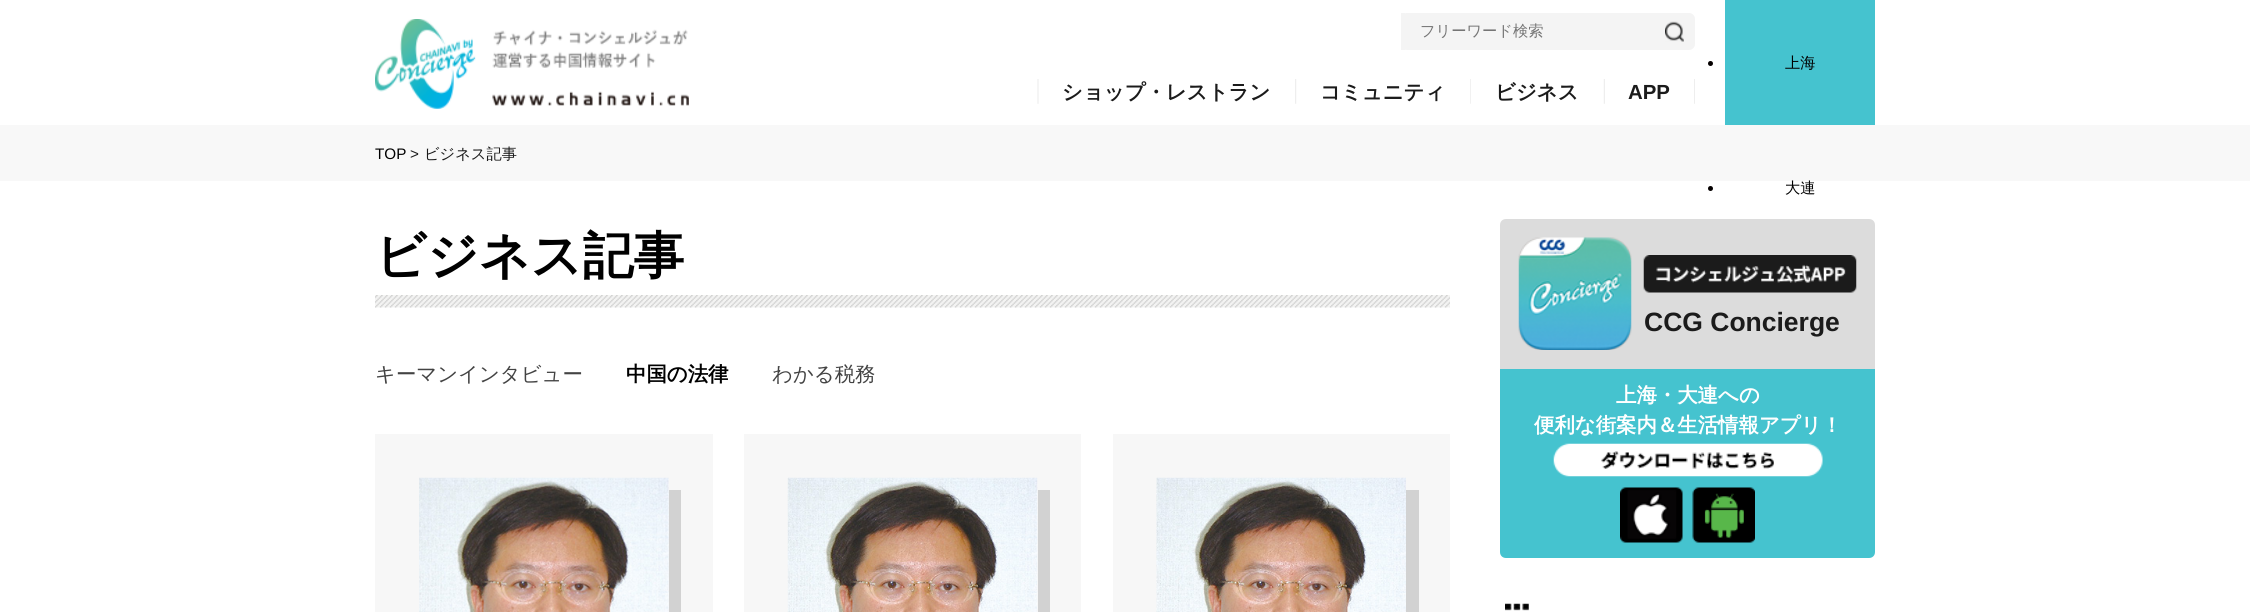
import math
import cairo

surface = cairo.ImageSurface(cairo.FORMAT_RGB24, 2250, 612)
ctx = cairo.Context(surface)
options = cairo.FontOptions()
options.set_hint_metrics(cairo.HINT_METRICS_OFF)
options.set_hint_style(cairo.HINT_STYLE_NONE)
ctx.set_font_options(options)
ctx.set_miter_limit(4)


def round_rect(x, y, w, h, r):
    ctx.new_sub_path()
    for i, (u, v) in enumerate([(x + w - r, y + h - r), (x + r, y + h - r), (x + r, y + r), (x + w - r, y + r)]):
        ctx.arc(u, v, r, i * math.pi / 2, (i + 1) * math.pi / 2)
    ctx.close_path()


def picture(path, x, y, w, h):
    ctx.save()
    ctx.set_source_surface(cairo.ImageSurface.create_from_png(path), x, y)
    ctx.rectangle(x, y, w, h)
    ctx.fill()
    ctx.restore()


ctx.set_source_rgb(1, 1, 1)
ctx.paint()
picture("img1.png", 375, 19, 314, 90)
ctx.set_source_rgb(0.957, 0.957, 0.957)
round_rect(1401, 13, 294, 37, 6)
ctx.fill()
ctx.rectangle(1401, 13, 4, 37)
ctx.fill()
ctx.select_font_face("WenQuanYi Zen Hei Medium")
ctx.set_font_size(15.25)
ctx.set_source_rgb(0.459, 0.459, 0.459)
ctx.move_to(1420, 36)
ctx.show_text("フリーワード検索")
picture("img2.png", 1665, 21, 19, 21)
picture("img3.png", 1694, 79, 1, 25)
picture("img4.png", 1037, 79, 2, 25)
ctx.select_font_face("WenQuanYi Zen Hei", cairo.FONT_SLANT_NORMAL, cairo.FONT_WEIGHT_BOLD)
ctx.set_font_size(20.4)
ctx.set_source_rgb(0.106, 0.106, 0.106)
ctx.move_to(1062, 99)
ctx.show_text("ショップ・レストラン")
picture("img5.png", 1295, 79, 2, 25)
ctx.move_to(1320, 99)
ctx.show_text("コミュニティ")
picture("img6.png", 1470, 79, 1, 25)
ctx.move_to(1495, 99)
ctx.show_text("ビジネス")
picture("img7.png", 1603, 79, 2, 25)
ctx.select_font_face("Liberation Sans", cairo.FONT_SLANT_NORMAL, cairo.FONT_WEIGHT_BOLD)
ctx.move_to(1628, 99)
ctx.show_text("APP")
ctx.set_source_rgb(0.271, 0.765, 0.812)
ctx.rectangle(1725, 0, 150, 125)
ctx.fill()
ctx.set_source_rgb(0.016, 0, 0)
ctx.arc(1710.5, 63.5, 2.5, 0, 2 * math.pi)
ctx.fill()
ctx.select_font_face("WenQuanYi Zen Hei Medium")
ctx.set_font_size(15.25)
ctx.set_source_rgb(0, 0, 0)
ctx.move_to(1785, 68)
ctx.show_text("上海")
ctx.set_source_rgb(0.016, 0, 0)
ctx.new_path()
ctx.arc(1710.5, 188.5, 2.5, 0, 2 * math.pi)
ctx.fill()
ctx.set_source_rgb(0.969, 0.969, 0.969)
ctx.rectangle(0, 125, 2250, 56)
ctx.fill()
ctx.set_source_rgb(0, 0, 0)
ctx.move_to(1785, 193)
ctx.show_text("大連")
ctx.select_font_face("Liberation Sans")
ctx.move_to(375, 159)
ctx.show_text("TOP")
ctx.set_source_rgb(0.106, 0.106, 0.106)
ctx.move_to(410, 159)
ctx.show_text(">")
ctx.select_font_face("WenQuanYi Zen Hei Medium")
ctx.move_to(424, 159)
ctx.show_text("ビジネス記事")
picture("img8.png", 375, 295, 1075, 13)
ctx.select_font_face("WenQuanYi Zen Hei", cairo.FONT_SLANT_NORMAL, cairo.FONT_WEIGHT_BOLD)
ctx.set_font_size(50.75)
ctx.set_source_rgb(0, 0, 0)
ctx.move_to(375, 273)
ctx.show_text("ビジネス記事")
ctx.select_font_face("WenQuanYi Zen Hei Medium")
ctx.set_font_size(20.4)
ctx.set_source_rgb(0.263, 0.263, 0.263)
ctx.move_to(375, 381)
ctx.show_text("キーマンインタビュー")
ctx.select_font_face("WenQuanYi Zen Hei", cairo.FONT_SLANT_NORMAL, cairo.FONT_WEIGHT_BOLD)
ctx.set_source_rgb(0, 0, 0)
ctx.move_to(626, 381)
ctx.show_text("中国の法律")
ctx.select_font_face("WenQuanYi Zen Hei Medium")
ctx.set_source_rgb(0.263, 0.263, 0.263)
ctx.move_to(772, 381)
ctx.show_text("わかる税務")
ctx.set_source_rgb(0.965, 0.965, 0.965)
ctx.rectangle(375, 434, 338, 178)
ctx.fill()
ctx.set_source_rgb(0.824, 0.824, 0.824)
ctx.new_path()
ctx.move_to(431, 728)
ctx.line_to(431, 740)
ctx.line_to(681, 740)
ctx.line_to(681, 490)
ctx.line_to(669, 490)
ctx.line_to(669, 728)
ctx.close_path()
ctx.fill()
picture("img9.png", 419, 477, 250, 135)
ctx.set_source_rgb(0.965, 0.965, 0.965)
ctx.rectangle(744, 434, 337, 178)
ctx.fill()
ctx.set_source_rgb(0.824, 0.824, 0.824)
ctx.new_path()
ctx.move_to(800, 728)
ctx.line_to(800, 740)
ctx.line_to(1050, 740)
ctx.line_to(1050, 490)
ctx.line_to(1038, 490)
ctx.line_to(1038, 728)
ctx.close_path()
ctx.fill()
picture("img10.png", 787, 477, 251, 135)
ctx.set_source_rgb(0.965, 0.965, 0.965)
ctx.rectangle(1113, 434, 337, 178)
ctx.fill()
ctx.set_source_rgb(0.824, 0.824, 0.824)
ctx.new_path()
ctx.move_to(1169, 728)
ctx.line_to(1169, 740)
ctx.line_to(1419, 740)
ctx.line_to(1419, 490)
ctx.line_to(1406, 490)
ctx.line_to(1406, 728)
ctx.close_path()
ctx.fill()
picture("img11.png", 1156, 477, 250, 135)
ctx.set_source_rgb(0.863, 0.863, 0.863)
ctx.new_path()
ctx.move_to(1506, 219)
ctx.line_to(1869, 219)
ctx.curve_to(1872.5, 219, 1875, 221.5, 1875, 225)
ctx.line_to(1875, 369)
ctx.line_to(1500, 369)
ctx.line_to(1500, 225)
ctx.curve_to(1500, 221.5, 1502.5, 219, 1506, 219)
ctx.close_path()
ctx.fill()
picture("img12.png", 1518, 237, 114, 113)
picture("img13.png", 1643, 255, 214, 38)
ctx.select_font_face("Liberation Sans", cairo.FONT_SLANT_NORMAL, cairo.FONT_WEIGHT_BOLD)
ctx.set_font_size(26.5)
ctx.set_source_rgb(0.106, 0.106, 0.106)
ctx.move_to(1644, 331)
ctx.show_text("CCG Concierge")
ctx.set_source_rgb(0.271, 0.765, 0.812)
ctx.new_path()
ctx.move_to(1500, 369)
ctx.line_to(1875, 369)
ctx.line_to(1875, 552)
ctx.curve_to(1875, 555.5, 1872.5, 558, 1869, 558)
ctx.line_to(1506, 558)
ctx.curve_to(1502.5, 558, 1500, 555.5, 1500, 552)
ctx.close_path()
ctx.fill()
ctx.select_font_face("WenQuanYi Zen Hei", cairo.FONT_SLANT_NORMAL, cairo.FONT_WEIGHT_BOLD)
ctx.set_font_size(20.4)
ctx.set_source_rgb(1, 1, 1)
ctx.move_to(1616, 402)
ctx.show_text("上海・大連への")
ctx.move_to(1534, 432)
ctx.show_text("便利な街案内＆生活情報アプリ！")
picture("img14.png", 1553, 443, 270, 34)
picture("img15.png", 1620, 487, 63, 56)
picture("img16.png", 1692, 487, 63, 56)
picture("img17.png", 1505, 603, 24, 8)
surface.write_to_png("page.png")
